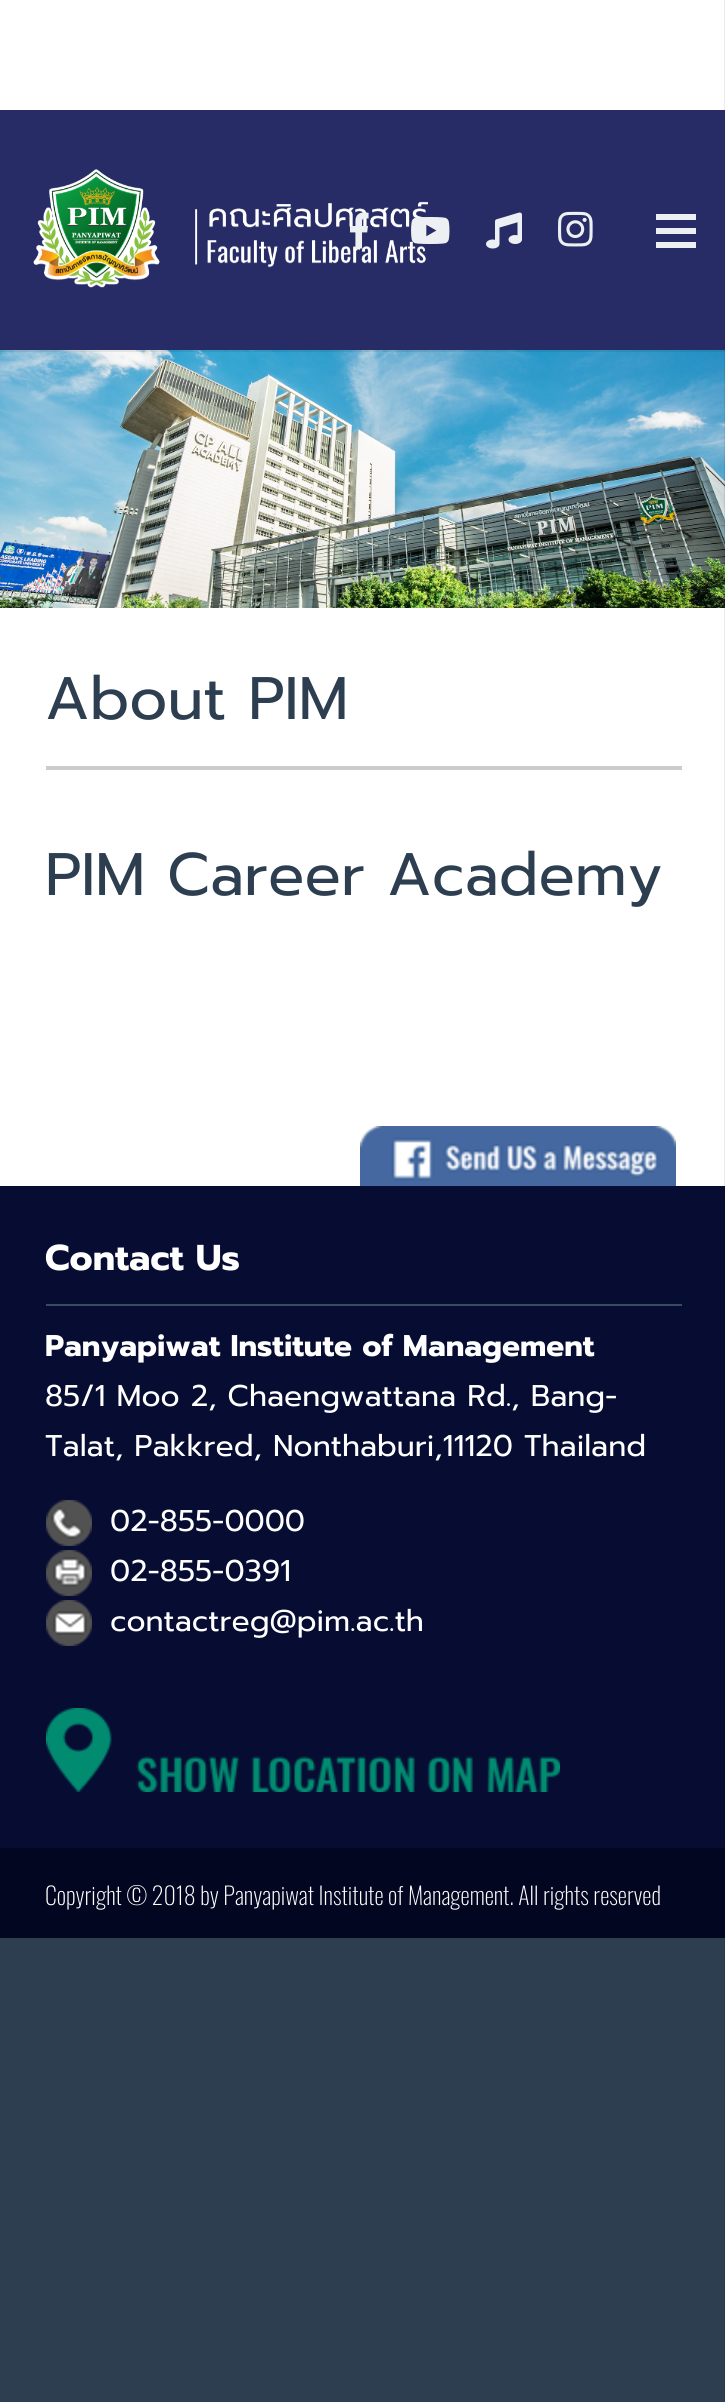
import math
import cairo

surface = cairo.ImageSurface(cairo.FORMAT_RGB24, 725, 2402)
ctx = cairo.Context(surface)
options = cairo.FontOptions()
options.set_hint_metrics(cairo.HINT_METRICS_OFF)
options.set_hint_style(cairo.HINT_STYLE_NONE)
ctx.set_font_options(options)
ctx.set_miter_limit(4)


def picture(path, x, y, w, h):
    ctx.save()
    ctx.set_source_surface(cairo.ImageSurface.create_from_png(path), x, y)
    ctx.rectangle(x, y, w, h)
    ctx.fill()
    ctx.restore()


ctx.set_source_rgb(0.173, 0.243, 0.314)
ctx.paint()
ctx.set_source_rgb(1, 1, 1)
ctx.rectangle(0, 0, 725, 1186)
ctx.fill()
picture("img6.png", 0, 350, 725, 258)
ctx.set_source_rgba(0, 0, 0, 0.08)
ctx.rectangle(0, 350, 725, 2)
ctx.fill()
ctx.set_source_rgb(0.153, 0.173, 0.404)
ctx.rectangle(0, 110, 725, 240)
ctx.fill()
picture("img1.png", 33, 169, 395, 119)
picture("img2.png", 350, 212, 19, 37)
picture("img3.png", 411, 217, 39, 27)
picture("img4.png", 486, 212, 36, 37)
picture("img5.png", 558, 211, 35, 36)
ctx.set_source_rgb(0.929, 0.941, 0.949)
ctx.rectangle(656, 228, 40, 6)
ctx.fill()
ctx.rectangle(656, 214, 40, 6)
ctx.fill()
ctx.rectangle(656, 242, 40, 6)
ctx.fill()
ctx.set_source_rgb(0.031, 0.047, 0.2)
ctx.rectangle(0, 1186, 725, 662)
ctx.fill()
ctx.set_source_rgb(0.012, 0.024, 0.129)
ctx.rectangle(0, 1848, 725, 90)
ctx.fill()
ctx.set_source_rgba(0, 0, 0, 0.08)
ctx.rectangle(724, 0, 1, 2402)
ctx.fill()
ctx.select_font_face("Prompt")
ctx.set_font_size(60)
ctx.set_source_rgb(0.173, 0.243, 0.314)
ctx.move_to(45, 719)
ctx.show_text("About PIM")
ctx.set_source_rgb(0.8, 0.8, 0.8)
ctx.rectangle(46, 766, 636, 4)
ctx.fill()
ctx.set_source_rgb(0.173, 0.243, 0.314)
ctx.move_to(45, 895)
ctx.show_text("PIM Career Academy")
picture("img7.png", 360, 1126, 316, 60)
ctx.select_font_face("Prompt", cairo.FONT_SLANT_NORMAL, cairo.FONT_WEIGHT_BOLD)
ctx.set_font_size(36)
ctx.set_source_rgb(1, 1, 1)
ctx.move_to(45, 1270)
ctx.show_text("Contact Us")
ctx.set_source_rgb(0.22, 0.294, 0.373)
ctx.rectangle(46, 1304, 636, 2)
ctx.fill()
ctx.set_font_size(30)
ctx.set_source_rgb(1, 1, 1)
ctx.move_to(45, 1356)
ctx.show_text("Panyapiwat Institute of Management")
ctx.select_font_face("Prompt")
ctx.move_to(45, 1406)
ctx.show_text("85/1 Moo 2, Chaengwattana Rd., Bang-")
ctx.move_to(45, 1456)
ctx.show_text("Talat, Pakkred, Nonthaburi,11120 Thailand")
picture("img8.png", 46, 1500, 46, 46)
ctx.move_to(110, 1531)
ctx.show_text("02-855-0000")
picture("img9.png", 46, 1550, 46, 46)
ctx.move_to(110, 1581)
ctx.show_text("02-855-0391")
picture("img10.png", 46, 1600, 46, 46)
ctx.move_to(110, 1631)
ctx.show_text("contactreg@pim.ac.th")
picture("img11.png", 46, 1708, 514, 84)
ctx.select_font_face("Oswald ExtraLight")
ctx.set_font_size(24)
ctx.move_to(45, 1905)
ctx.show_text("Copyright © 2018 by Panyapiwat Institute of Management. All rights reserved")
surface.write_to_png("page.png")
